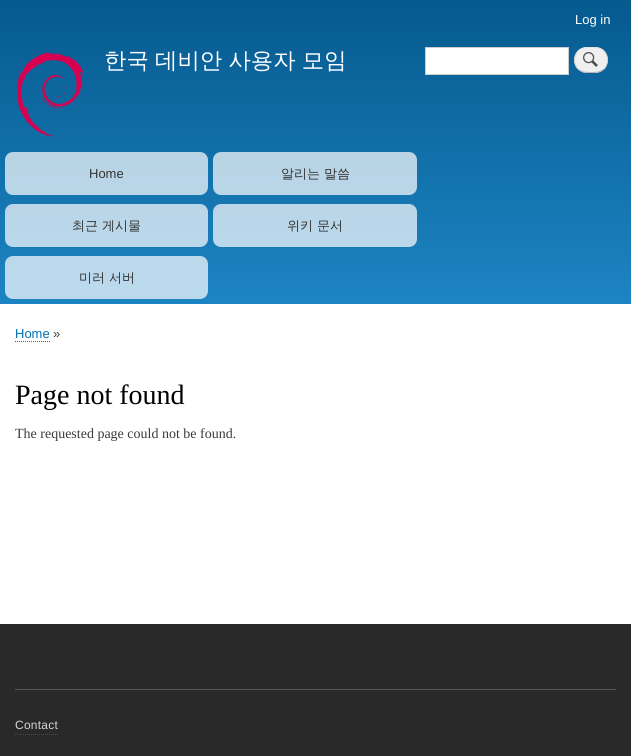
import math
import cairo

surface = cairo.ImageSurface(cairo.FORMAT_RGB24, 631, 756)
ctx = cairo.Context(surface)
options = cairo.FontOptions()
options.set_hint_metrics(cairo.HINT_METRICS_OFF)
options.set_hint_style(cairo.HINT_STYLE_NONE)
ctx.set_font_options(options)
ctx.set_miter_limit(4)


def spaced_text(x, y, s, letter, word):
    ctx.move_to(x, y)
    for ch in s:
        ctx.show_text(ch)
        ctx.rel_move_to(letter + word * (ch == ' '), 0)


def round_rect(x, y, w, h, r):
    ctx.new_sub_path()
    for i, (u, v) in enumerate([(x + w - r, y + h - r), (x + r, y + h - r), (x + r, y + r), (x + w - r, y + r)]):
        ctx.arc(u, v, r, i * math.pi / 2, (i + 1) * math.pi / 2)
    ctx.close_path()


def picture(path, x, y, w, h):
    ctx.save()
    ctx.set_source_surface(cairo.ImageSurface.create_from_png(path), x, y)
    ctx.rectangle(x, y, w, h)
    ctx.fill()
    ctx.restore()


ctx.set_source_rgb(1, 1, 1)
ctx.paint()
gradient = cairo.LinearGradient(316, 0, 316, 304)
gradient.add_color_stop_rgba(0, 0.02, 0.353, 0.557, 1)
gradient.add_color_stop_rgba(1, 0.114, 0.518, 0.765, 1)
ctx.set_source(gradient)
ctx.rectangle(0, 0, 631, 304)
ctx.fill()
ctx.select_font_face("Liberation Sans")
ctx.set_font_size(13)
ctx.set_source_rgb(1, 0.996, 1)
ctx.move_to(575, 24)
ctx.show_text("Log in")
picture("img1.png", 16, 51, 69, 86)
ctx.select_font_face("WenQuanYi Zen Hei Medium")
ctx.set_font_size(22.4)
spaced_text(104, 68, "한국 데비안 사용자 모임", 0, -0.5)
ctx.set_source_rgb(1, 1, 1)
ctx.rectangle(425.5, 47.5, 143, 27)
ctx.fill_preserve()
ctx.set_source_rgb(0.8, 0.8, 0.8)
ctx.set_line_width(1)
ctx.stroke()
ctx.set_source_rgb(0.941, 0.941, 0.941)
round_rect(574, 47, 34, 26, 13)
ctx.fill()
picture("img2.png", 583, 52, 15, 15)
ctx.new_path()
ctx.move_to(578, 51)
ctx.curve_to(582, 47.5, 586, 47.5, 591, 47.5)
ctx.curve_to(596, 47.5, 600, 47.5, 604, 51)
ctx.set_source_rgb(0.894, 0.894, 0.894)
ctx.stroke()
ctx.new_path()
ctx.move_to(604, 51)
ctx.curve_to(608.5, 56, 608.5, 64, 604, 69)
ctx.set_source_rgb(0.824, 0.824, 0.824)
ctx.stroke()
ctx.new_path()
ctx.move_to(604, 69)
ctx.curve_to(600, 72.5, 596, 72.5, 591, 72.5)
ctx.curve_to(586, 72.5, 582, 72.5, 578, 69)
ctx.set_source_rgb(0.706, 0.706, 0.706)
ctx.stroke()
ctx.new_path()
ctx.move_to(578, 69)
ctx.curve_to(573.5, 64, 573.5, 56, 578, 51)
ctx.set_source_rgb(0.824, 0.824, 0.824)
ctx.stroke()
ctx.set_source_rgba(1, 1, 1, 0.7)
round_rect(5, 152, 203, 43, 8)
ctx.fill()
ctx.select_font_face("Liberation Sans")
ctx.set_font_size(13)
ctx.set_source_rgb(0.2, 0.2, 0.2)
ctx.move_to(89, 178)
ctx.show_text("Home")
ctx.set_source_rgba(1, 1, 1, 0.7)
round_rect(213, 152, 204, 43, 8)
ctx.fill()
ctx.select_font_face("WenQuanYi Zen Hei Medium")
ctx.set_source_rgb(0.2, 0.2, 0.2)
ctx.move_to(281, 178)
ctx.show_text("알리는 말씀")
ctx.set_source_rgba(1, 1, 1, 0.7)
round_rect(5, 204, 203, 43, 8)
ctx.fill()
ctx.set_source_rgb(0.2, 0.2, 0.2)
ctx.move_to(72, 230)
ctx.show_text("최근 게시물")
ctx.set_source_rgba(1, 1, 1, 0.7)
round_rect(213, 204, 204, 43, 8)
ctx.fill()
ctx.set_source_rgb(0.2, 0.2, 0.2)
ctx.move_to(287, 230)
ctx.show_text("위키 문서")
ctx.set_source_rgba(1, 1, 1, 0.7)
round_rect(5, 256, 203, 43, 8)
ctx.fill()
ctx.set_source_rgb(0.2, 0.2, 0.2)
ctx.move_to(79, 282)
ctx.show_text("미러 서버")
ctx.select_font_face("Liberation Sans")
ctx.set_source_rgb(0, 0.443, 0.702)
ctx.move_to(15, 338)
ctx.show_text("Home")
ctx.new_path()
ctx.move_to(15, 341.5)
ctx.line_to(50, 341.5)
ctx.set_dash([1, 1])
ctx.stroke()
ctx.set_source_rgb(0.231, 0.231, 0.231)
ctx.move_to(53, 338)
ctx.show_text("»")
ctx.select_font_face("Liberation Serif")
ctx.set_font_size(28)
ctx.set_source_rgb(0, 0, 0)
ctx.move_to(15, 404)
ctx.show_text("Page not found")
ctx.set_font_size(14)
ctx.set_source_rgb(0.231, 0.231, 0.231)
ctx.move_to(15, 438)
ctx.show_text("The requested page could not be found.")
ctx.set_source_rgb(0.161, 0.161, 0.161)
ctx.rectangle(0, 624, 631, 132)
ctx.fill()
ctx.set_source_rgb(0.333, 0.333, 0.333)
ctx.rectangle(15, 689, 601, 1)
ctx.fill()
ctx.new_path()
ctx.move_to(15, 734.5)
ctx.line_to(58, 734.5)
ctx.set_source_rgb(0.286, 0.286, 0.286)
ctx.stroke()
ctx.select_font_face("Liberation Sans")
ctx.set_font_size(12)
ctx.set_source_rgb(0.831, 0.831, 0.831)
spaced_text(15, 729, "Contact", 0.25, 0)
surface.write_to_png("page.png")
